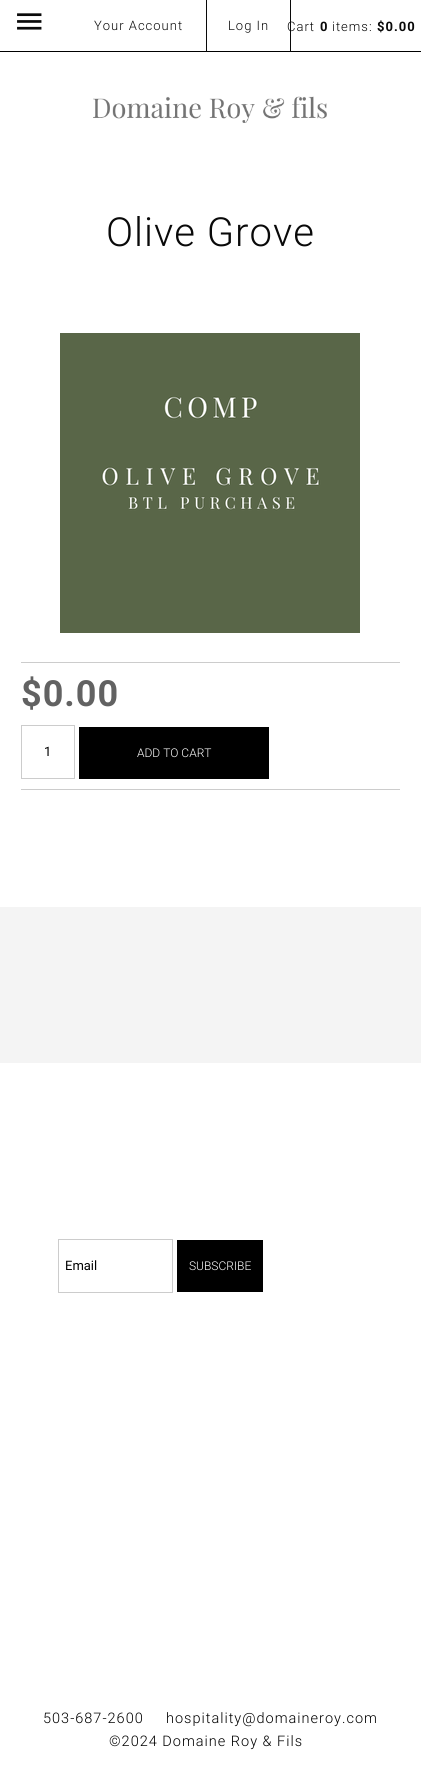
import math
import cairo

surface = cairo.ImageSurface(cairo.FORMAT_RGB24, 421, 1778)
ctx = cairo.Context(surface)
options = cairo.FontOptions()
options.set_hint_metrics(cairo.HINT_METRICS_OFF)
options.set_hint_style(cairo.HINT_STYLE_NONE)
ctx.set_font_options(options)
ctx.set_miter_limit(4)


def spaced_text(x, y, s, letter, word):
    ctx.move_to(x, y)
    for ch in s:
        ctx.show_text(ch)
        ctx.rel_move_to(letter + word * (ch == ' '), 0)


def picture(path, x, y, w, h):
    ctx.save()
    ctx.set_source_surface(cairo.ImageSurface.create_from_png(path), x, y)
    ctx.rectangle(x, y, w, h)
    ctx.fill()
    ctx.restore()


ctx.set_source_rgb(1, 1, 1)
ctx.paint()
picture("img1.png", 17, 13, 25, 17)
ctx.set_source_rgb(0, 0, 0)
ctx.rectangle(0, 51, 421, 1)
ctx.fill()
ctx.set_source_rgb(0.039, 0.039, 0.039)
ctx.rectangle(206, 0, 1, 52)
ctx.fill()
ctx.select_font_face("Roboto Light")
ctx.set_font_size(13)
spaced_text(94, 30, "Your Account", 1, 0)
ctx.rectangle(290, 0, 1, 52)
ctx.fill()
spaced_text(228, 30, "Log In", 1, 0)
spaced_text(287, 31, "Cart", 1, 0)
ctx.select_font_face("Roboto", cairo.FONT_SLANT_NORMAL, cairo.FONT_WEIGHT_BOLD)
spaced_text(320, 31, "0", 1, 0)
ctx.select_font_face("Roboto Light")
spaced_text(332, 31, "items:", 1, 0)
ctx.select_font_face("Roboto", cairo.FONT_SLANT_NORMAL, cairo.FONT_WEIGHT_BOLD)
spaced_text(377, 31, "$0.00", 1, 0)
picture("img2.png", 93, 96, 234, 27)
ctx.select_font_face("Roboto Light")
ctx.set_font_size(40)
spaced_text(106, 246, "Olive Grove", 1, 0)
picture("img3.png", 60, 333, 300, 300)
ctx.set_source_rgb(0.8, 0.8, 0.8)
ctx.rectangle(21, 662, 379, 1)
ctx.fill()
ctx.rectangle(21, 789, 379, 1)
ctx.fill()
ctx.select_font_face("Roboto", cairo.FONT_SLANT_NORMAL, cairo.FONT_WEIGHT_BOLD)
ctx.set_font_size(36)
ctx.set_source_rgb(0.384, 0.384, 0.384)
spaced_text(21, 706, "$0.00", 1, 0)
ctx.rectangle(21.5, 725.5, 53, 53)
ctx.set_source_rgb(0.8, 0.8, 0.8)
ctx.set_line_width(1)
ctx.stroke()
ctx.select_font_face("Roboto")
ctx.set_font_size(13)
ctx.set_source_rgb(0, 0, 0)
ctx.move_to(44, 756)
ctx.show_text("1")
ctx.rectangle(79, 727, 190, 52)
ctx.fill()
ctx.select_font_face("Roboto Light")
ctx.set_font_size(12)
ctx.set_source_rgb(1, 1, 1)
ctx.move_to(137, 757)
ctx.show_text("ADD TO CART")
ctx.set_source_rgb(0.957, 0.957, 0.957)
ctx.rectangle(0, 907, 421, 156)
ctx.fill()
ctx.rectangle(58.5, 1239.5, 114, 53)
ctx.set_source_rgb(0.8, 0.8, 0.8)
ctx.stroke()
ctx.select_font_face("Roboto")
ctx.set_font_size(13)
ctx.set_source_rgb(0, 0, 0)
ctx.move_to(65, 1270)
ctx.show_text("Email")
ctx.rectangle(177, 1240, 86, 52)
ctx.fill()
ctx.select_font_face("Roboto Light")
ctx.set_font_size(12)
ctx.set_source_rgb(1, 1, 1)
ctx.move_to(189, 1270)
ctx.show_text("SUBSCRIBE")
ctx.set_font_size(14.5)
ctx.set_source_rgb(0, 0, 0)
spaced_text(43, 1723, "503-687-2600", 1, 0)
spaced_text(166, 1723, "hospitality@domaineroy.com", 1, 0)
spaced_text(109, 1746, "©2024 Domaine Roy & Fils", 1, 0)
surface.write_to_png("page.png")
